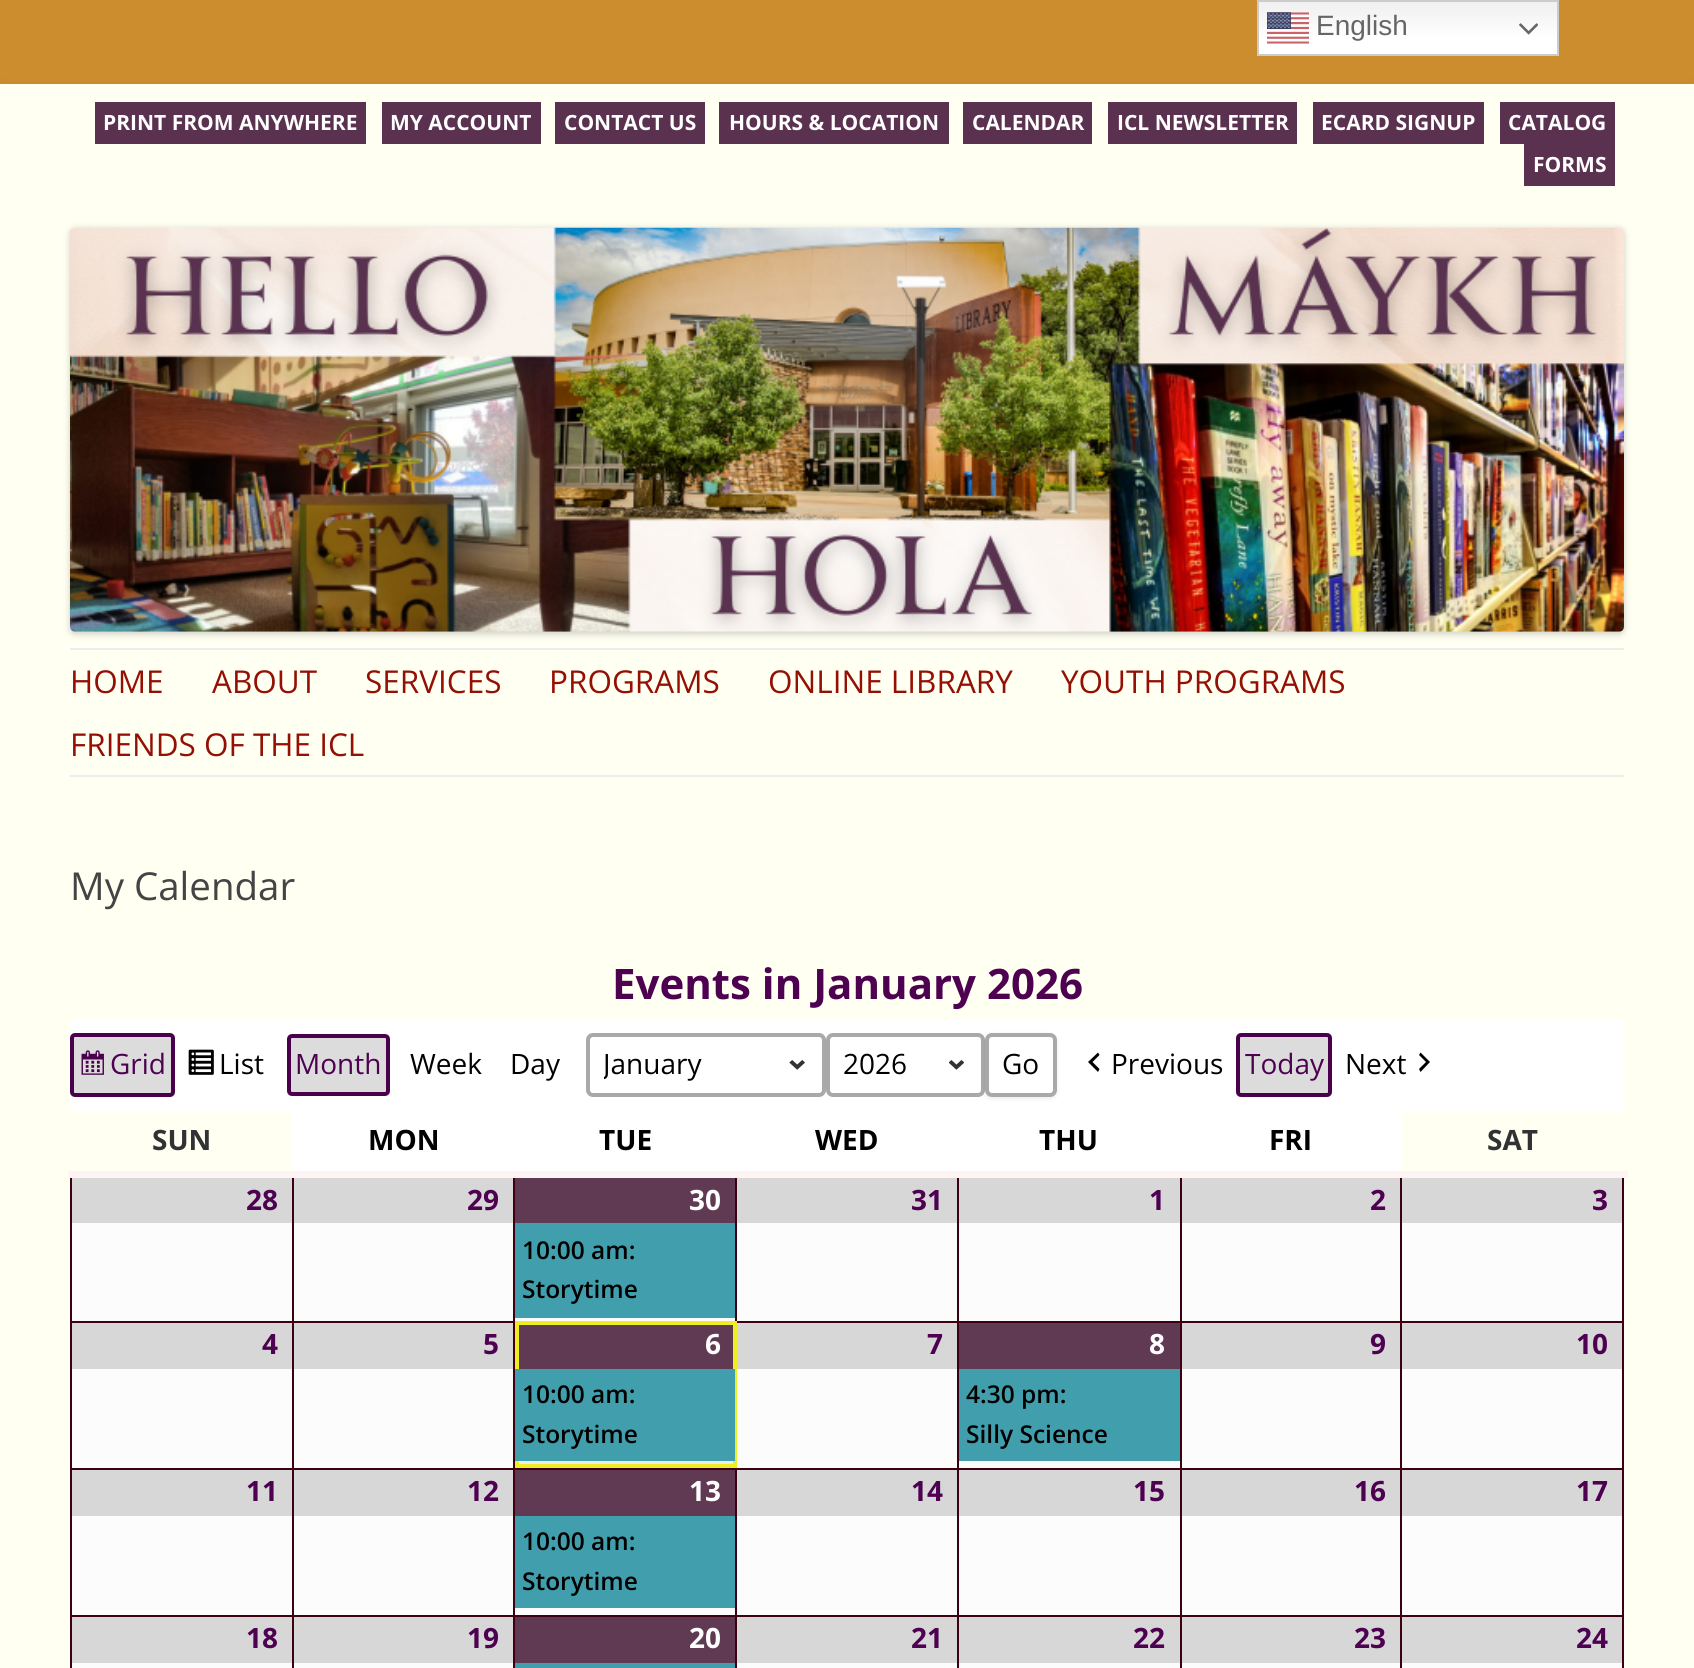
import math
import cairo

surface = cairo.ImageSurface(cairo.FORMAT_RGB24, 1694, 1668)
ctx = cairo.Context(surface)
options = cairo.FontOptions()
options.set_hint_metrics(cairo.HINT_METRICS_OFF)
options.set_hint_style(cairo.HINT_STYLE_NONE)
ctx.set_font_options(options)
ctx.set_miter_limit(4)


def round_rect(x, y, w, h, r):
    ctx.new_sub_path()
    for i, (u, v) in enumerate([(x + w - r, y + h - r), (x + r, y + h - r), (x + r, y + r), (x + w - r, y + r)]):
        ctx.arc(u, v, r, i * math.pi / 2, (i + 1) * math.pi / 2)
    ctx.close_path()


def shadow(x, y, w, h, r, blur, alpha):
    ctx.push_group_with_content(cairo.CONTENT_ALPHA)
    ctx.set_operator(cairo.OPERATOR_SOURCE)
    for i in range(15, -16, -2):
        e = blur * i / 6
        if min(w, h) + 2 * e > 0:
            ctx.set_source_rgba(0, 0, 0, alpha * math.erfc((i - 1) / 8.5) / 2)
            round_rect(x - e, y - e, w + 2 * e, h + 2 * e, max(0, min(r + e + blur * .6, min(w, h) / 2 + e)))
            ctx.fill()
    ctx.mask(ctx.pop_group())


def picture(path, x, y, w, h):
    ctx.save()
    ctx.set_source_surface(cairo.ImageSurface.create_from_png(path), x, y)
    ctx.rectangle(x, y, w, h)
    ctx.fill()
    ctx.restore()


ctx.set_source_rgb(0.8, 0.553, 0.18)
ctx.paint()
gradient = cairo.LinearGradient(1408, 0, 1408, 56)
gradient.add_color_stop_rgba(0, 0.937, 0.937, 0.937, 1)
gradient.add_color_stop_rgba(0.7, 1, 1, 1, 1)
ctx.set_source(gradient)
ctx.rectangle(1259, 2, 298, 52)
ctx.fill()
ctx.rectangle(1258, 1, 300, 54)
ctx.set_source_rgb(0.8, 0.8, 0.8)
ctx.stroke()
picture("img1.png", 1267, 12, 42, 32)
ctx.select_font_face("Liberation Sans")
ctx.set_font_size(28)
ctx.set_source_rgb(0.4, 0.4, 0.4)
ctx.move_to(1316, 35)
ctx.show_text("English")
picture("img2.png", 1519, 23, 19, 12)
ctx.set_source_rgb(0.392, 0.392, 0.392)
shadow(0, 88, 1694, 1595, 0, 5, 0.3)
ctx.set_source_rgb(1, 1, 0.949)
ctx.rectangle(0, 84, 1694, 1584)
ctx.fill()
ctx.set_source_rgb(0.353, 0.192, 0.31)
ctx.rectangle(95, 102, 271, 42)
ctx.fill()
ctx.select_font_face("Open Sans", cairo.FONT_SLANT_NORMAL, cairo.FONT_WEIGHT_BOLD)
ctx.set_font_size(21)
ctx.set_source_rgb(1, 1, 1)
ctx.move_to(103, 130)
ctx.show_text("PRINT FROM ANYWHERE")
ctx.set_source_rgb(0.353, 0.192, 0.31)
ctx.rectangle(382, 102, 159, 42)
ctx.fill()
ctx.set_source_rgb(1, 1, 1)
ctx.move_to(390, 130)
ctx.show_text("MY ACCOUNT")
ctx.set_source_rgb(0.353, 0.192, 0.31)
ctx.rectangle(555, 102, 150, 42)
ctx.fill()
ctx.set_source_rgb(1, 1, 1)
ctx.move_to(564, 130)
ctx.show_text("CONTACT US")
ctx.set_source_rgb(0.353, 0.192, 0.31)
ctx.rectangle(719, 102, 230, 42)
ctx.fill()
ctx.set_source_rgb(1, 1, 1)
ctx.move_to(729, 130)
ctx.show_text("HOURS & LOCATION")
ctx.set_source_rgb(0.353, 0.192, 0.31)
ctx.rectangle(963, 102, 129, 42)
ctx.fill()
ctx.set_source_rgb(1, 1, 1)
ctx.move_to(972, 130)
ctx.show_text("CALENDAR")
ctx.set_source_rgb(0.353, 0.192, 0.31)
ctx.rectangle(1108, 102, 189, 42)
ctx.fill()
ctx.set_source_rgb(1, 1, 1)
ctx.move_to(1117, 130)
ctx.show_text("ICL NEWSLETTER")
ctx.set_source_rgb(0.353, 0.192, 0.31)
ctx.rectangle(1313, 102, 171, 42)
ctx.fill()
ctx.set_source_rgb(1, 1, 1)
ctx.move_to(1321, 130)
ctx.show_text("ECARD SIGNUP")
ctx.set_source_rgb(0.353, 0.192, 0.31)
ctx.rectangle(1500, 102, 115, 42)
ctx.fill()
ctx.set_source_rgb(1, 1, 1)
ctx.move_to(1508, 130)
ctx.show_text("CATALOG")
ctx.set_source_rgb(0.353, 0.192, 0.31)
ctx.rectangle(1524, 144, 91, 42)
ctx.fill()
ctx.set_source_rgb(1, 1, 1)
ctx.move_to(1533, 172)
ctx.show_text("FORMS")
ctx.set_source_rgb(0, 0, 0)
shadow(70, 229, 1554, 405, 5, 3.5, 0.2)
picture("img3.png", 70, 227, 1554, 405)
ctx.set_source_rgb(0.929, 0.929, 0.929)
ctx.rectangle(70, 648, 1554, 2)
ctx.fill()
ctx.rectangle(70, 775, 1554, 2)
ctx.fill()
ctx.select_font_face("Open Sans")
ctx.set_font_size(31.5)
ctx.set_source_rgb(0.58, 0.059, 0.016)
ctx.move_to(70, 693)
ctx.show_text("HOME")
ctx.move_to(212, 693)
ctx.show_text("ABOUT")
ctx.move_to(365, 693)
ctx.show_text("SERVICES")
ctx.move_to(549, 693)
ctx.show_text("PROGRAMS")
ctx.move_to(768, 693)
ctx.show_text("ONLINE LIBRARY")
ctx.move_to(1061, 693)
ctx.show_text("YOUTH PROGRAMS")
ctx.move_to(70, 756)
ctx.show_text("FRIENDS OF THE ICL")
ctx.set_font_size(38.5)
ctx.set_source_rgb(0.267, 0.267, 0.267)
ctx.move_to(70, 900)
ctx.show_text("My Calendar")
ctx.select_font_face("Open Sans", cairo.FONT_SLANT_NORMAL, cairo.FONT_WEIGHT_BOLD)
ctx.set_font_size(42)
ctx.set_source_rgb(0.306, 0, 0.318)
ctx.move_to(612, 999)
ctx.show_text("Events in January 2026")
ctx.set_source_rgb(1, 1, 1)
ctx.rectangle(70, 1019, 1554, 92)
ctx.fill()
ctx.set_source_rgb(0.863, 0.863, 0.863)
round_rect(70, 1033, 105, 64, 5)
ctx.fill()
picture("img4.png", 81, 1050, 23, 25)
round_rect(72, 1035, 101, 60, 3)
ctx.set_source_rgb(0.29, 0, 0.302)
ctx.set_line_width(4)
ctx.stroke()
ctx.select_font_face("Open Sans")
ctx.set_font_size(28)
ctx.set_source_rgb(0.306, 0, 0.318)
ctx.move_to(110, 1074)
ctx.show_text("Grid")
picture("img5.png", 188, 1049, 26, 26)
ctx.set_source_rgb(0, 0, 0)
ctx.move_to(219, 1074)
ctx.show_text("List")
ctx.set_source_rgb(0.863, 0.863, 0.863)
round_rect(287, 1034, 103, 62, 5)
ctx.fill()
round_rect(289, 1036, 99, 58, 3)
ctx.set_source_rgb(0.29, 0, 0.302)
ctx.stroke()
ctx.set_source_rgb(0.306, 0, 0.318)
ctx.move_to(295, 1074)
ctx.show_text("Month")
ctx.set_source_rgb(0, 0, 0)
ctx.move_to(410, 1074)
ctx.show_text("Week")
ctx.move_to(510, 1074)
ctx.show_text("Day")
picture("img6.png", 789, 1060, 16, 10)
round_rect(588, 1035, 236, 60, 5)
ctx.set_source_rgb(0.663, 0.663, 0.663)
ctx.stroke()
ctx.save()
ctx.rectangle(604, 1043, 145, 44)
ctx.clip()
ctx.set_source_rgb(0, 0, 0)
ctx.move_to(603, 1074)
ctx.show_text("January")
ctx.restore()
picture("img7.png", 949, 1060, 15, 10)
round_rect(828, 1035, 155, 60, 5)
ctx.stroke()
ctx.set_source_rgb(0, 0, 0)
ctx.move_to(843, 1074)
ctx.show_text("2026")
ctx.set_source_rgb(0.251, 0.251, 0.251)
shadow(985, 1034, 72, 65, 7, 2, 0.1)
ctx.set_source_rgb(1, 1, 1)
round_rect(987, 1035, 68, 60, 5)
ctx.fill_preserve()
ctx.set_source_rgb(0.663, 0.663, 0.663)
ctx.stroke()
ctx.set_source_rgb(0, 0, 0)
ctx.move_to(1002, 1074)
ctx.show_text("Go")
ctx.new_path()
ctx.move_to(1099.5, 1055)
ctx.line_to(1092.5, 1062)
ctx.line_to(1099.5, 1069)
ctx.line_to(1098, 1072)
ctx.line_to(1088, 1062)
ctx.line_to(1098, 1052.5)
ctx.close_path()
ctx.fill()
ctx.move_to(1111, 1074)
ctx.show_text("Previous")
ctx.set_source_rgb(0.863, 0.863, 0.863)
round_rect(1236, 1033, 96, 64, 5)
ctx.fill()
round_rect(1238, 1035, 92, 60, 3)
ctx.set_source_rgb(0.29, 0, 0.302)
ctx.stroke()
ctx.set_source_rgb(0.306, 0, 0.318)
ctx.move_to(1245, 1074)
ctx.show_text("Today")
ctx.set_source_rgb(0, 0, 0)
ctx.move_to(1345, 1074)
ctx.show_text("Next")
ctx.new_path()
ctx.move_to(1419, 1069)
ctx.line_to(1426, 1062)
ctx.line_to(1419, 1055)
ctx.line_to(1420.5, 1052.5)
ctx.line_to(1430, 1062)
ctx.line_to(1420.5, 1072)
ctx.close_path()
ctx.fill()
ctx.set_source_rgb(0.239, 0, 0.063)
ctx.rectangle(1400, 1468, 224, 2)
ctx.fill()
ctx.rectangle(1400, 1615, 224, 2)
ctx.fill()
ctx.rectangle(1400, 1615, 2, 53)
ctx.fill()
ctx.rectangle(1180, 1615, 222, 2)
ctx.fill()
ctx.rectangle(1400, 1468, 2, 149)
ctx.fill()
ctx.rectangle(1180, 1468, 222, 2)
ctx.fill()
ctx.rectangle(1180, 1615, 2, 53)
ctx.fill()
ctx.rectangle(957, 1615, 224, 2)
ctx.fill()
ctx.rectangle(1180, 1468, 2, 149)
ctx.fill()
ctx.rectangle(957, 1468, 224, 2)
ctx.fill()
ctx.rectangle(957, 1615, 2, 53)
ctx.fill()
ctx.rectangle(735, 1615, 224, 2)
ctx.fill()
ctx.rectangle(957, 1468, 2, 149)
ctx.fill()
ctx.rectangle(735, 1468, 224, 2)
ctx.fill()
ctx.rectangle(735, 1615, 2, 53)
ctx.fill()
ctx.rectangle(513, 1615, 224, 2)
ctx.fill()
ctx.rectangle(735, 1468, 2, 149)
ctx.fill()
ctx.rectangle(513, 1468, 224, 2)
ctx.fill()
ctx.rectangle(513, 1615, 2, 53)
ctx.fill()
ctx.rectangle(292, 1615, 223, 2)
ctx.fill()
ctx.rectangle(513, 1468, 2, 149)
ctx.fill()
ctx.rectangle(292, 1468, 223, 2)
ctx.fill()
ctx.rectangle(513, 1321, 2, 149)
ctx.fill()
ctx.rectangle(292, 1321, 223, 2)
ctx.fill()
ctx.rectangle(292, 1615, 2, 53)
ctx.fill()
ctx.rectangle(70, 1615, 224, 2)
ctx.fill()
ctx.rectangle(292, 1468, 2, 149)
ctx.fill()
ctx.rectangle(70, 1468, 224, 2)
ctx.fill()
ctx.rectangle(292, 1321, 2, 149)
ctx.fill()
ctx.rectangle(70, 1321, 224, 2)
ctx.fill()
ctx.rectangle(292, 1174, 2, 149)
ctx.fill()
ctx.rectangle(513, 1174, 2, 149)
ctx.fill()
ctx.rectangle(1400, 1321, 224, 2)
ctx.fill()
ctx.rectangle(1400, 1321, 2, 149)
ctx.fill()
ctx.rectangle(1180, 1321, 222, 2)
ctx.fill()
ctx.rectangle(1180, 1321, 2, 149)
ctx.fill()
ctx.rectangle(957, 1321, 224, 2)
ctx.fill()
ctx.rectangle(957, 1321, 2, 149)
ctx.fill()
ctx.rectangle(735, 1321, 224, 2)
ctx.fill()
ctx.rectangle(735, 1174, 2, 149)
ctx.fill()
ctx.rectangle(957, 1174, 2, 149)
ctx.fill()
ctx.rectangle(1180, 1174, 2, 149)
ctx.fill()
ctx.rectangle(1400, 1174, 2, 149)
ctx.fill()
ctx.rectangle(70, 1615, 2, 53)
ctx.fill()
ctx.rectangle(70, 1468, 2, 149)
ctx.fill()
ctx.rectangle(70, 1174, 2, 296)
ctx.fill()
ctx.rectangle(1622, 1615, 2, 53)
ctx.fill()
ctx.rectangle(1622, 1468, 2, 149)
ctx.fill()
ctx.rectangle(1622, 1174, 2, 296)
ctx.fill()
ctx.set_source_rgb(1, 0.957, 0.957)
ctx.rectangle(68, 1171, 1560, 7)
ctx.fill()
ctx.select_font_face("Open Sans", cairo.FONT_SLANT_NORMAL, cairo.FONT_WEIGHT_BOLD)
ctx.set_source_rgb(0.192, 0.196, 0.2)
ctx.move_to(152, 1150)
ctx.show_text("SUN")
ctx.set_source_rgb(1, 1, 1)
ctx.rectangle(292, 1111, 1110, 60)
ctx.fill()
ctx.set_source_rgb(0, 0, 0)
ctx.move_to(368, 1150)
ctx.show_text("MON")
ctx.move_to(599, 1150)
ctx.show_text("TUE")
ctx.move_to(815, 1150)
ctx.show_text("WED")
ctx.move_to(1039, 1150)
ctx.show_text("THU")
ctx.move_to(1269, 1150)
ctx.show_text("FRI")
ctx.set_source_rgb(0.192, 0.196, 0.2)
ctx.move_to(1487, 1150)
ctx.show_text("SAT")
ctx.set_source_rgb(0.988, 0.988, 0.988)
ctx.rectangle(72, 1223, 220, 98)
ctx.fill()
ctx.set_source_rgb(0.843, 0.843, 0.843)
ctx.rectangle(72, 1178, 220, 45)
ctx.fill()
ctx.set_source_rgb(0.306, 0, 0.318)
ctx.move_to(246, 1210)
ctx.show_text("28")
ctx.set_source_rgb(0.988, 0.988, 0.988)
ctx.rectangle(294, 1223, 219, 98)
ctx.fill()
ctx.set_source_rgb(0.843, 0.843, 0.843)
ctx.rectangle(294, 1178, 219, 45)
ctx.fill()
ctx.set_source_rgb(0.306, 0, 0.318)
ctx.move_to(467, 1210)
ctx.show_text("29")
ctx.set_source_rgb(0.988, 0.988, 0.988)
ctx.rectangle(515, 1318, 220, 3)
ctx.fill()
ctx.set_source_rgb(0.373, 0.227, 0.322)
ctx.rectangle(515, 1178, 220, 45)
ctx.fill()
ctx.set_source_rgb(1, 1, 1)
ctx.move_to(689, 1210)
ctx.show_text("30")
ctx.set_source_rgb(0.255, 0.624, 0.678)
ctx.rectangle(515, 1223, 220, 95)
ctx.fill()
ctx.select_font_face("Open Sans SemiBold")
ctx.set_font_size(24.5)
ctx.set_source_rgb(0, 0, 0)
ctx.move_to(522, 1259)
ctx.show_text("10:00 am:")
ctx.move_to(522, 1298)
ctx.show_text("Storytime")
ctx.set_source_rgb(0.988, 0.988, 0.988)
ctx.rectangle(737, 1223, 220, 98)
ctx.fill()
ctx.set_source_rgb(0.843, 0.843, 0.843)
ctx.rectangle(737, 1178, 220, 45)
ctx.fill()
ctx.select_font_face("Open Sans", cairo.FONT_SLANT_NORMAL, cairo.FONT_WEIGHT_BOLD)
ctx.set_font_size(28)
ctx.set_source_rgb(0.306, 0, 0.318)
ctx.move_to(911, 1210)
ctx.show_text("31")
ctx.set_source_rgb(0.988, 0.988, 0.988)
ctx.rectangle(959, 1223, 221, 98)
ctx.fill()
ctx.set_source_rgb(0.843, 0.843, 0.843)
ctx.rectangle(959, 1178, 221, 45)
ctx.fill()
ctx.set_source_rgb(0.306, 0, 0.318)
ctx.move_to(1149, 1210)
ctx.show_text("1")
ctx.set_source_rgb(0.988, 0.988, 0.988)
ctx.rectangle(1182, 1223, 218, 98)
ctx.fill()
ctx.set_source_rgb(0.843, 0.843, 0.843)
ctx.rectangle(1182, 1178, 218, 45)
ctx.fill()
ctx.set_source_rgb(0.306, 0, 0.318)
ctx.move_to(1370, 1210)
ctx.show_text("2")
ctx.set_source_rgb(0.988, 0.988, 0.988)
ctx.rectangle(1402, 1223, 220, 98)
ctx.fill()
ctx.set_source_rgb(0.843, 0.843, 0.843)
ctx.rectangle(1402, 1178, 220, 45)
ctx.fill()
ctx.set_source_rgb(0.306, 0, 0.318)
ctx.move_to(1592, 1210)
ctx.show_text("3")
ctx.set_source_rgb(0.988, 0.988, 0.988)
ctx.rectangle(72, 1369, 220, 99)
ctx.fill()
ctx.set_source_rgb(0.843, 0.843, 0.843)
ctx.rectangle(72, 1323, 220, 46)
ctx.fill()
ctx.set_source_rgb(0.306, 0, 0.318)
ctx.move_to(262, 1354)
ctx.show_text("4")
ctx.set_source_rgb(0.988, 0.988, 0.988)
ctx.rectangle(294, 1369, 219, 99)
ctx.fill()
ctx.set_source_rgb(0.843, 0.843, 0.843)
ctx.rectangle(294, 1323, 219, 46)
ctx.fill()
ctx.set_source_rgb(0.306, 0, 0.318)
ctx.move_to(483, 1354)
ctx.show_text("5")
ctx.set_source_rgb(0.929, 0.929, 0.929)
ctx.rectangle(519, 1461, 214, 3)
ctx.fill()
ctx.set_source_rgb(0.373, 0.227, 0.322)
ctx.rectangle(519, 1325, 214, 44)
ctx.fill()
ctx.rectangle(517, 1323, 218, 143)
ctx.set_source_rgb(0.933, 0.933, 0.133)
ctx.stroke()
ctx.set_source_rgb(1, 1, 1)
ctx.move_to(705, 1354)
ctx.show_text("6")
ctx.set_source_rgb(0.255, 0.624, 0.678)
ctx.rectangle(515, 1369, 220, 92)
ctx.fill()
ctx.select_font_face("Open Sans SemiBold")
ctx.set_font_size(24.5)
ctx.set_source_rgb(0, 0, 0)
ctx.move_to(522, 1403)
ctx.show_text("10:00 am:")
ctx.move_to(522, 1443)
ctx.show_text("Storytime")
ctx.set_source_rgb(0.988, 0.988, 0.988)
ctx.rectangle(737, 1369, 220, 99)
ctx.fill()
ctx.set_source_rgb(0.843, 0.843, 0.843)
ctx.rectangle(737, 1323, 220, 46)
ctx.fill()
ctx.select_font_face("Open Sans", cairo.FONT_SLANT_NORMAL, cairo.FONT_WEIGHT_BOLD)
ctx.set_font_size(28)
ctx.set_source_rgb(0.306, 0, 0.318)
ctx.move_to(927, 1354)
ctx.show_text("7")
ctx.set_source_rgb(0.988, 0.988, 0.988)
ctx.rectangle(959, 1461, 221, 7)
ctx.fill()
ctx.set_source_rgb(0.373, 0.227, 0.322)
ctx.rectangle(959, 1323, 221, 46)
ctx.fill()
ctx.set_source_rgb(1, 1, 1)
ctx.move_to(1149, 1354)
ctx.show_text("8")
ctx.set_source_rgb(0.255, 0.624, 0.678)
ctx.rectangle(959, 1369, 221, 92)
ctx.fill()
ctx.select_font_face("Open Sans SemiBold")
ctx.set_font_size(24.5)
ctx.set_source_rgb(0, 0, 0)
ctx.move_to(966, 1403)
ctx.show_text("4:30 pm:")
ctx.move_to(966, 1443)
ctx.show_text("Silly Science")
ctx.set_source_rgb(0.988, 0.988, 0.988)
ctx.rectangle(1182, 1369, 218, 99)
ctx.fill()
ctx.set_source_rgb(0.843, 0.843, 0.843)
ctx.rectangle(1182, 1323, 218, 46)
ctx.fill()
ctx.select_font_face("Open Sans", cairo.FONT_SLANT_NORMAL, cairo.FONT_WEIGHT_BOLD)
ctx.set_font_size(28)
ctx.set_source_rgb(0.306, 0, 0.318)
ctx.move_to(1370, 1354)
ctx.show_text("9")
ctx.set_source_rgb(0.988, 0.988, 0.988)
ctx.rectangle(1402, 1369, 220, 99)
ctx.fill()
ctx.set_source_rgb(0.843, 0.843, 0.843)
ctx.rectangle(1402, 1323, 220, 46)
ctx.fill()
ctx.set_source_rgb(0.306, 0, 0.318)
ctx.move_to(1576, 1354)
ctx.show_text("10")
ctx.set_source_rgb(0.988, 0.988, 0.988)
ctx.rectangle(72, 1516, 220, 99)
ctx.fill()
ctx.set_source_rgb(0.843, 0.843, 0.843)
ctx.rectangle(72, 1470, 220, 46)
ctx.fill()
ctx.set_source_rgb(0.306, 0, 0.318)
ctx.move_to(246, 1501)
ctx.show_text("11")
ctx.set_source_rgb(0.988, 0.988, 0.988)
ctx.rectangle(294, 1516, 219, 99)
ctx.fill()
ctx.set_source_rgb(0.843, 0.843, 0.843)
ctx.rectangle(294, 1470, 219, 46)
ctx.fill()
ctx.set_source_rgb(0.306, 0, 0.318)
ctx.move_to(467, 1501)
ctx.show_text("12")
ctx.set_source_rgb(0.988, 0.988, 0.988)
ctx.rectangle(515, 1608, 220, 7)
ctx.fill()
ctx.set_source_rgb(0.373, 0.227, 0.322)
ctx.rectangle(515, 1470, 220, 46)
ctx.fill()
ctx.set_source_rgb(1, 1, 1)
ctx.move_to(689, 1501)
ctx.show_text("13")
ctx.set_source_rgb(0.255, 0.624, 0.678)
ctx.rectangle(515, 1516, 220, 92)
ctx.fill()
ctx.select_font_face("Open Sans SemiBold")
ctx.set_font_size(24.5)
ctx.set_source_rgb(0, 0, 0)
ctx.move_to(522, 1550)
ctx.show_text("10:00 am:")
ctx.move_to(522, 1590)
ctx.show_text("Storytime")
ctx.set_source_rgb(0.988, 0.988, 0.988)
ctx.rectangle(737, 1516, 220, 99)
ctx.fill()
ctx.set_source_rgb(0.843, 0.843, 0.843)
ctx.rectangle(737, 1470, 220, 46)
ctx.fill()
ctx.select_font_face("Open Sans", cairo.FONT_SLANT_NORMAL, cairo.FONT_WEIGHT_BOLD)
ctx.set_font_size(28)
ctx.set_source_rgb(0.306, 0, 0.318)
ctx.move_to(911, 1501)
ctx.show_text("14")
ctx.set_source_rgb(0.988, 0.988, 0.988)
ctx.rectangle(959, 1516, 221, 99)
ctx.fill()
ctx.set_source_rgb(0.843, 0.843, 0.843)
ctx.rectangle(959, 1470, 221, 46)
ctx.fill()
ctx.set_source_rgb(0.306, 0, 0.318)
ctx.move_to(1133, 1501)
ctx.show_text("15")
ctx.set_source_rgb(0.988, 0.988, 0.988)
ctx.rectangle(1182, 1516, 218, 99)
ctx.fill()
ctx.set_source_rgb(0.843, 0.843, 0.843)
ctx.rectangle(1182, 1470, 218, 46)
ctx.fill()
ctx.set_source_rgb(0.306, 0, 0.318)
ctx.move_to(1354, 1501)
ctx.show_text("16")
ctx.set_source_rgb(0.988, 0.988, 0.988)
ctx.rectangle(1402, 1516, 220, 99)
ctx.fill()
ctx.set_source_rgb(0.843, 0.843, 0.843)
ctx.rectangle(1402, 1470, 220, 46)
ctx.fill()
ctx.set_source_rgb(0.306, 0, 0.318)
ctx.move_to(1576, 1501)
ctx.show_text("17")
ctx.set_source_rgb(0.988, 0.988, 0.988)
ctx.rectangle(72, 1663, 220, 5)
ctx.fill()
ctx.set_source_rgb(0.843, 0.843, 0.843)
ctx.rectangle(72, 1617, 220, 46)
ctx.fill()
ctx.set_source_rgb(0.306, 0, 0.318)
ctx.move_to(246, 1648)
ctx.show_text("18")
ctx.set_source_rgb(0.988, 0.988, 0.988)
ctx.rectangle(294, 1663, 219, 5)
ctx.fill()
ctx.set_source_rgb(0.843, 0.843, 0.843)
ctx.rectangle(294, 1617, 219, 46)
ctx.fill()
ctx.set_source_rgb(0.306, 0, 0.318)
ctx.move_to(467, 1648)
ctx.show_text("19")
ctx.set_source_rgb(0.373, 0.227, 0.322)
ctx.rectangle(515, 1617, 220, 46)
ctx.fill()
ctx.set_source_rgb(1, 1, 1)
ctx.move_to(689, 1648)
ctx.show_text("20")
ctx.set_source_rgb(0.255, 0.624, 0.678)
ctx.rectangle(515, 1663, 220, 5)
ctx.fill()
ctx.set_source_rgb(0.988, 0.988, 0.988)
ctx.rectangle(737, 1663, 220, 5)
ctx.fill()
ctx.set_source_rgb(0.843, 0.843, 0.843)
ctx.rectangle(737, 1617, 220, 46)
ctx.fill()
ctx.set_source_rgb(0.306, 0, 0.318)
ctx.move_to(911, 1648)
ctx.show_text("21")
ctx.set_source_rgb(0.988, 0.988, 0.988)
ctx.rectangle(959, 1663, 221, 5)
ctx.fill()
ctx.set_source_rgb(0.843, 0.843, 0.843)
ctx.rectangle(959, 1617, 221, 46)
ctx.fill()
ctx.set_source_rgb(0.306, 0, 0.318)
ctx.move_to(1133, 1648)
ctx.show_text("22")
ctx.set_source_rgb(0.988, 0.988, 0.988)
ctx.rectangle(1182, 1663, 218, 5)
ctx.fill()
ctx.set_source_rgb(0.843, 0.843, 0.843)
ctx.rectangle(1182, 1617, 218, 46)
ctx.fill()
ctx.set_source_rgb(0.306, 0, 0.318)
ctx.move_to(1354, 1648)
ctx.show_text("23")
ctx.set_source_rgb(0.988, 0.988, 0.988)
ctx.rectangle(1402, 1663, 220, 5)
ctx.fill()
ctx.set_source_rgb(0.843, 0.843, 0.843)
ctx.rectangle(1402, 1617, 220, 46)
ctx.fill()
ctx.set_source_rgb(0.306, 0, 0.318)
ctx.move_to(1576, 1648)
ctx.show_text("24")
surface.write_to_png("page.png")
